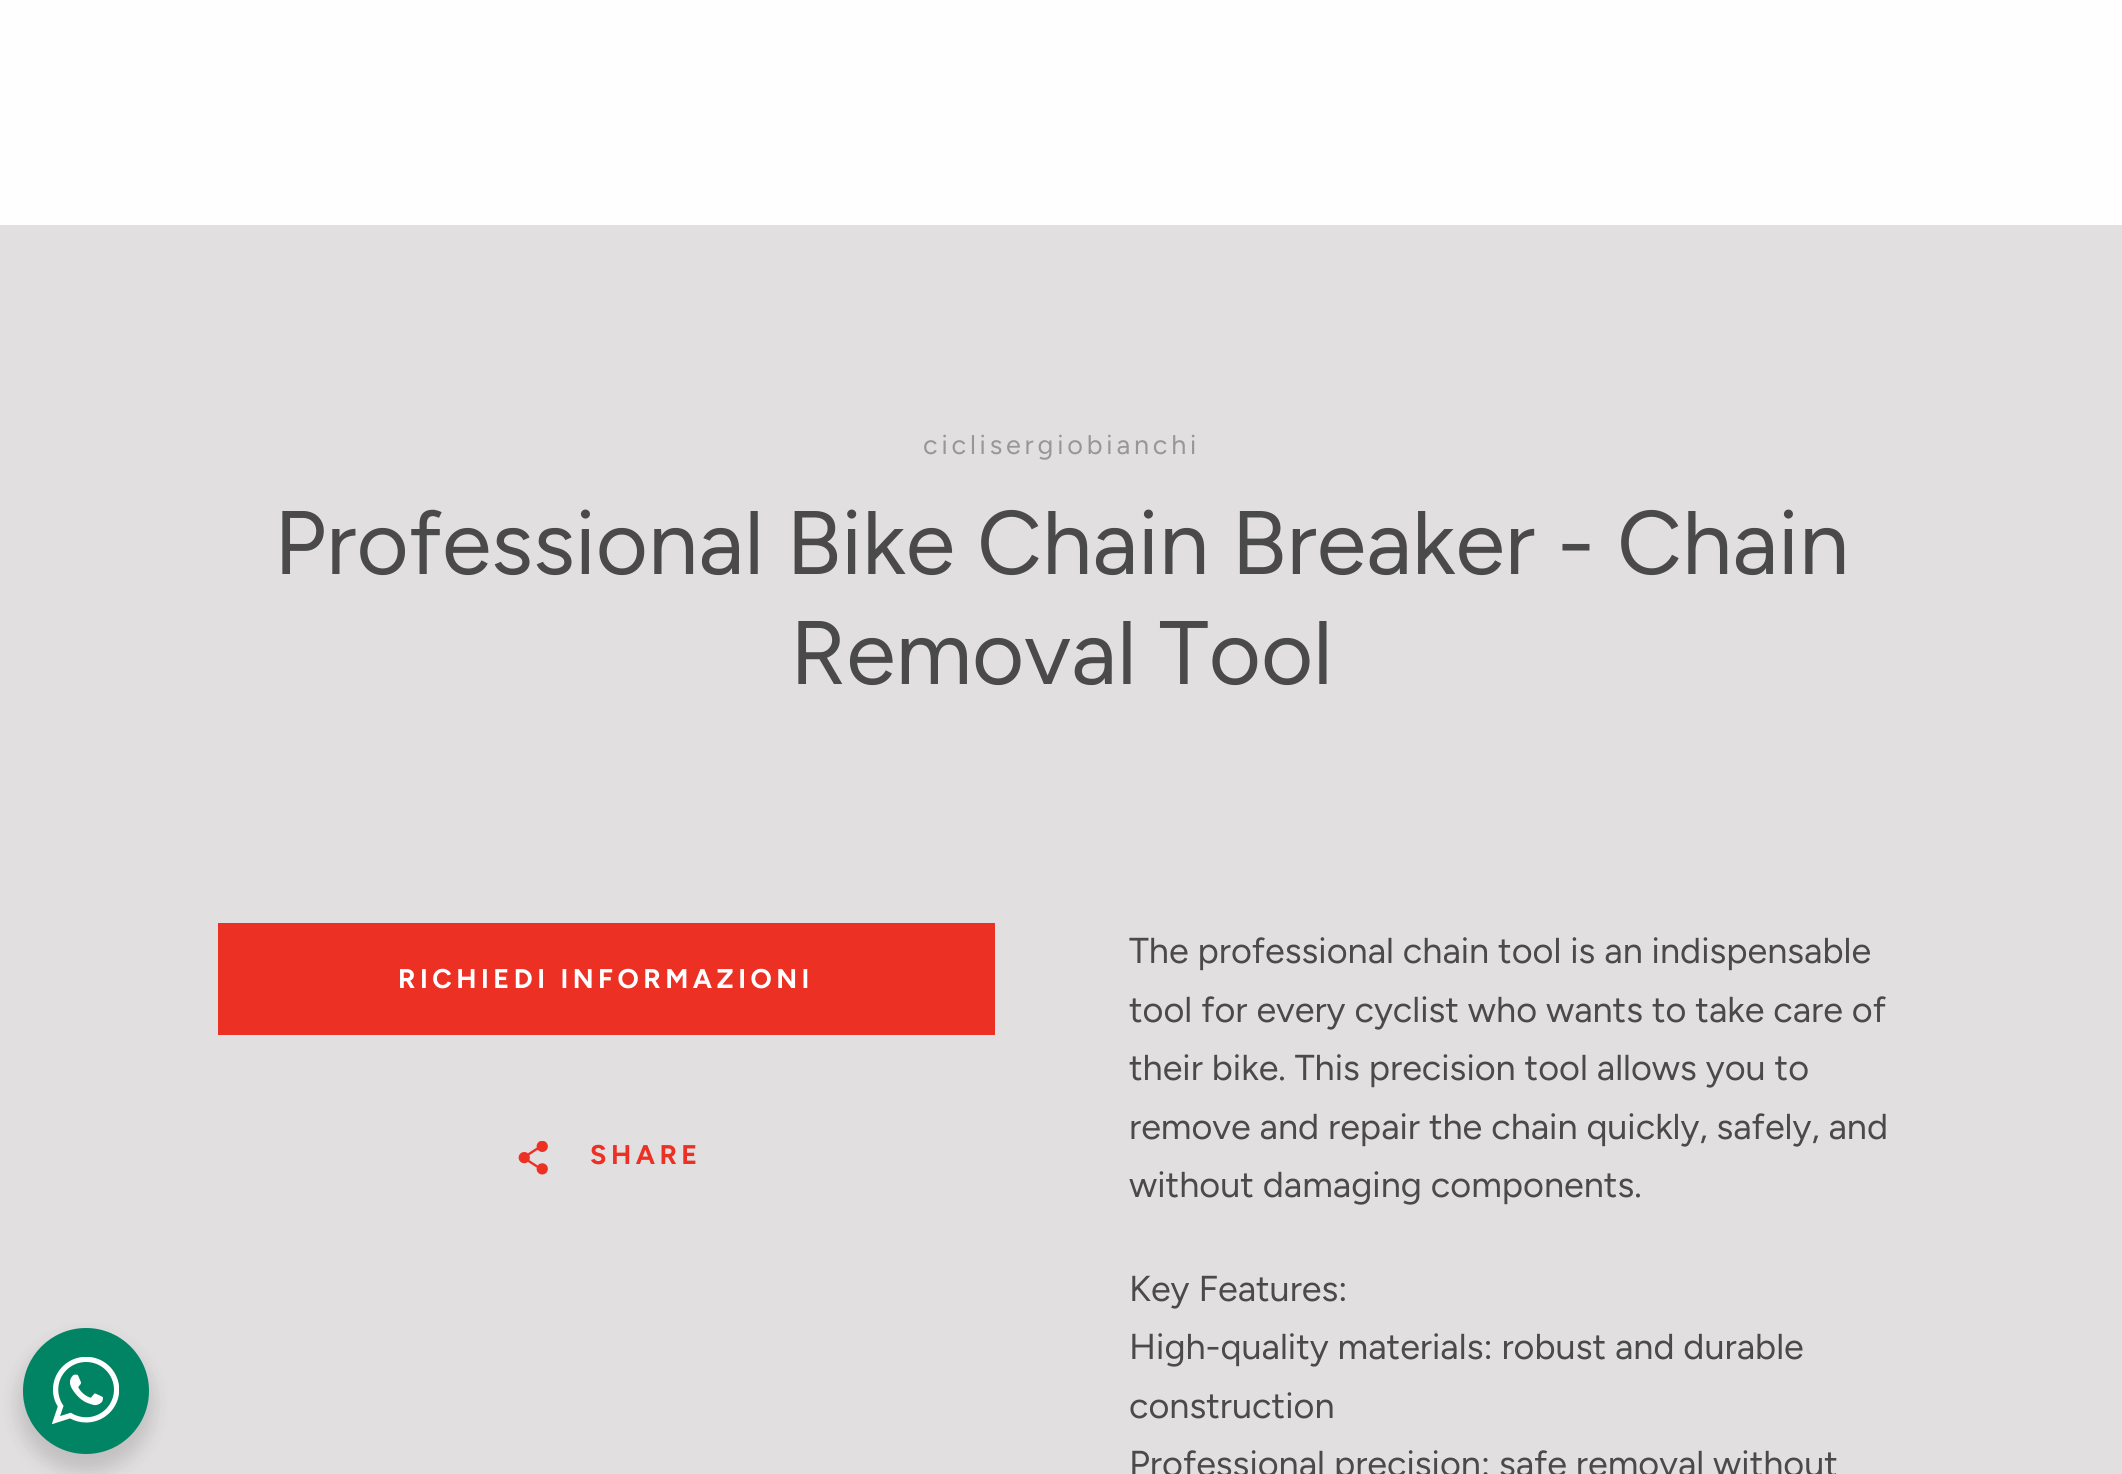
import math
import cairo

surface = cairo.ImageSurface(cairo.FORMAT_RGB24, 2122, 1474)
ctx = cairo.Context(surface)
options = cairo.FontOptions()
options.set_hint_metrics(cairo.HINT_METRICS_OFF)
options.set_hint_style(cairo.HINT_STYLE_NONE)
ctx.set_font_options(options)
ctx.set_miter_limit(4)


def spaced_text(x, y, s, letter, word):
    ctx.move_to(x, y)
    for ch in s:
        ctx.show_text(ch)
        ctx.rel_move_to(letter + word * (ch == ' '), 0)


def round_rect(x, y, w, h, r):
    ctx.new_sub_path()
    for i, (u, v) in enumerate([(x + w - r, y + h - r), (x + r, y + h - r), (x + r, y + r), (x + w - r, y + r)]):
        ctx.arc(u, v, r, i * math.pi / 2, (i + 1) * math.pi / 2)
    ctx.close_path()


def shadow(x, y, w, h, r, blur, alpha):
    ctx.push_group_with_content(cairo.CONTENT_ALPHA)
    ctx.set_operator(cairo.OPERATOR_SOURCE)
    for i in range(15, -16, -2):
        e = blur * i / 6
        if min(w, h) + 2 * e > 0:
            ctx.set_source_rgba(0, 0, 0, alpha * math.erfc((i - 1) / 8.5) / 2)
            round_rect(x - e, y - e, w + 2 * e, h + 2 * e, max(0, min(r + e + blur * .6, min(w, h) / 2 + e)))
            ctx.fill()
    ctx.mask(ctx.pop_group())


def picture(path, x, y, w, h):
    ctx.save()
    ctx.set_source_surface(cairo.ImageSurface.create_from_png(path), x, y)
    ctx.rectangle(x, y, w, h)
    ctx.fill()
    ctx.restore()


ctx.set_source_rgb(0.882, 0.875, 0.875)
ctx.paint()
ctx.set_source_rgb(0, 0, 0)
shadow(18, 1337, 135, 135, 67.5, 9, 0.14)
ctx.set_source_rgb(0, 0.518, 0.392)
ctx.arc(86, 1391, 63, 0, 2 * math.pi)
ctx.fill()
picture("img1.png", 52, 1357, 67, 67)
ctx.set_source_rgb(0.996, 0.996, 0.996)
ctx.rectangle(0, 0, 2122, 225)
ctx.fill()
ctx.select_font_face("Figtree")
ctx.set_font_size(27)
ctx.set_source_rgb(0.592, 0.592, 0.592)
spaced_text(923, 454, "ciclisergiobianchi", 3.8, 0)
ctx.set_font_size(90)
ctx.set_source_rgb(0.29, 0.29, 0.29)
ctx.move_to(274, 574)
ctx.show_text("Professional Bike Chain Breaker - Chain")
ctx.move_to(790, 684)
ctx.show_text("Removal Tool")
ctx.set_source_rgb(0.929, 0.188, 0.141)
ctx.rectangle(218, 923, 777, 112)
ctx.fill()
ctx.select_font_face("Figtree", cairo.FONT_SLANT_NORMAL, cairo.FONT_WEIGHT_BOLD)
ctx.set_font_size(27)
ctx.set_source_rgb(1, 1, 1)
spaced_text(398, 988, "RICHIEDI INFORMAZIONI", 4.5, 0)
picture("img2.png", 518, 1141, 30, 34)
ctx.set_source_rgb(0.929, 0.188, 0.141)
spaced_text(590, 1164, "SHARE", 4.5, 0)
ctx.select_font_face("Figtree")
ctx.set_font_size(36)
ctx.set_source_rgb(0.29, 0.29, 0.29)
ctx.move_to(1129, 963)
ctx.show_text("The professional chain tool is an indispensable")
ctx.move_to(1129, 1022)
ctx.show_text("tool for every cyclist who wants to take care of")
ctx.move_to(1129, 1080)
ctx.show_text("their bike. This precision tool allows you to")
ctx.move_to(1129, 1139)
ctx.show_text("remove and repair the chain quickly, safely, and")
ctx.move_to(1129, 1197)
ctx.show_text("without damaging components.")
ctx.move_to(1129, 1301)
ctx.show_text("Key Features:")
ctx.move_to(1129, 1359)
ctx.show_text("High-quality materials: robust and durable")
ctx.move_to(1129, 1418)
ctx.show_text("construction")
ctx.move_to(1129, 1476)
ctx.show_text("Professional precision: safe removal without")
surface.write_to_png("page.png")
